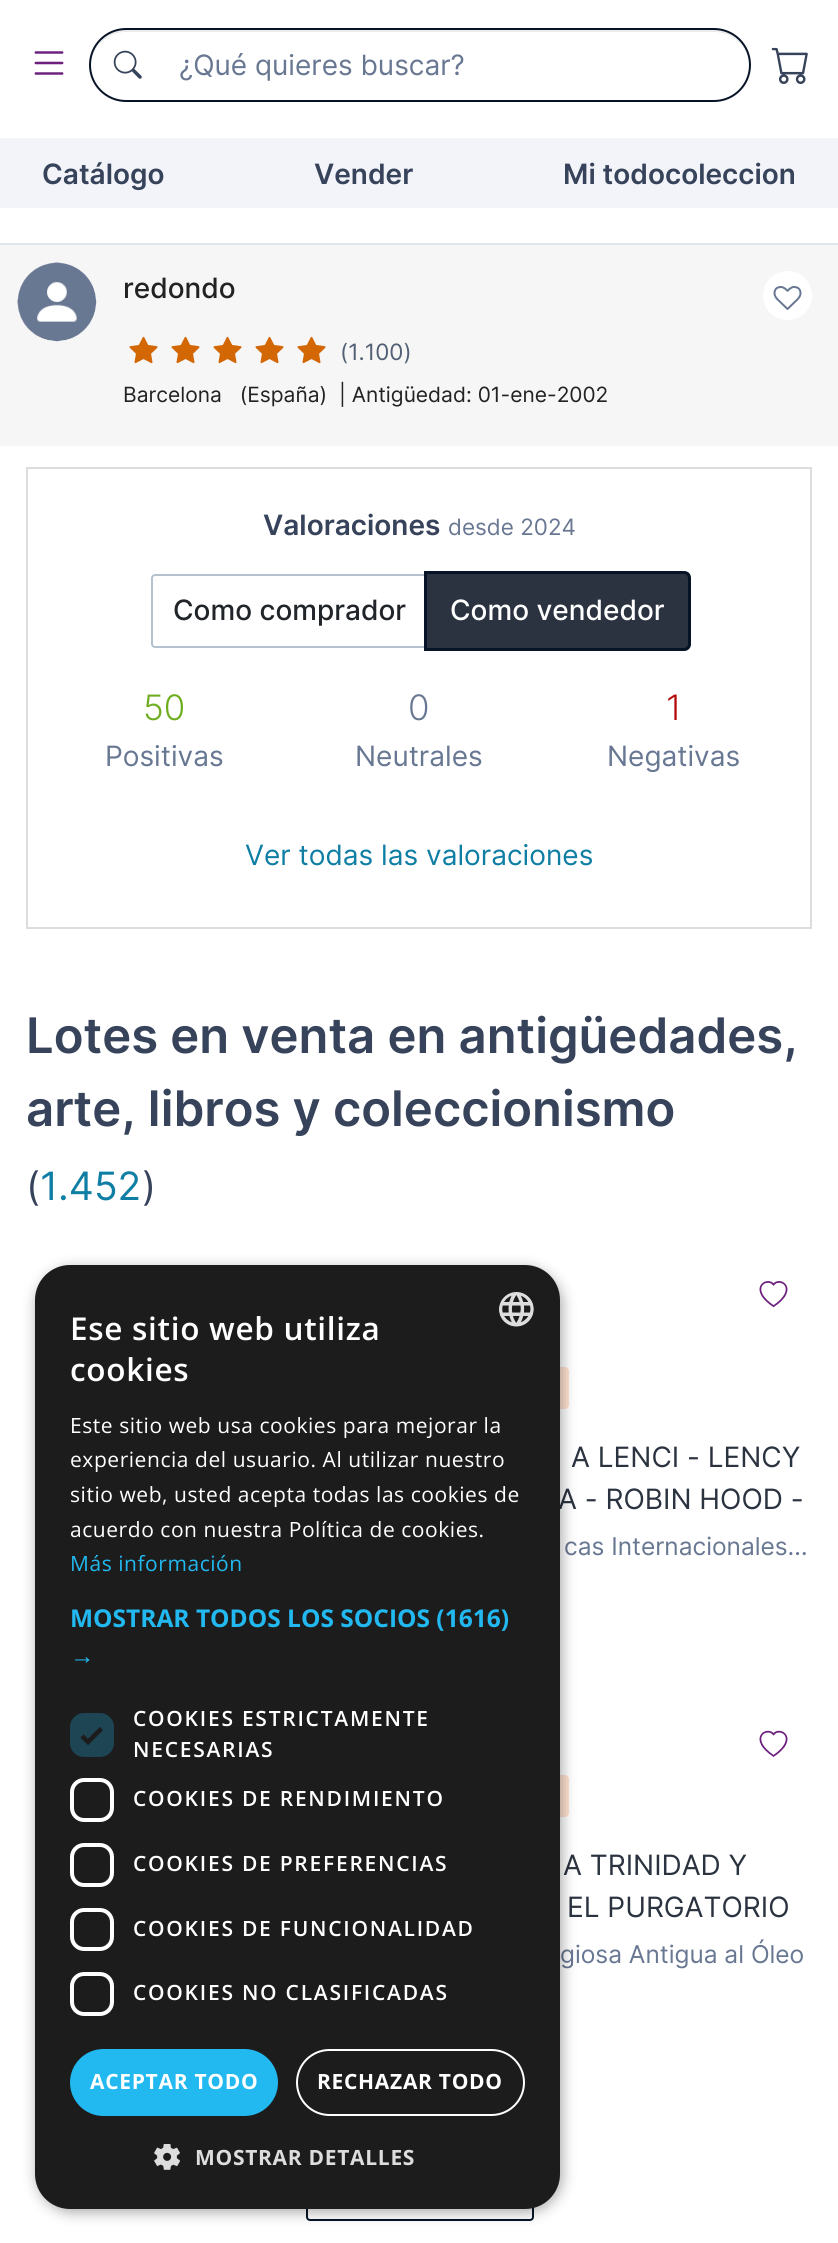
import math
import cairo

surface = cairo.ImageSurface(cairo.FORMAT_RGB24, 838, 2243)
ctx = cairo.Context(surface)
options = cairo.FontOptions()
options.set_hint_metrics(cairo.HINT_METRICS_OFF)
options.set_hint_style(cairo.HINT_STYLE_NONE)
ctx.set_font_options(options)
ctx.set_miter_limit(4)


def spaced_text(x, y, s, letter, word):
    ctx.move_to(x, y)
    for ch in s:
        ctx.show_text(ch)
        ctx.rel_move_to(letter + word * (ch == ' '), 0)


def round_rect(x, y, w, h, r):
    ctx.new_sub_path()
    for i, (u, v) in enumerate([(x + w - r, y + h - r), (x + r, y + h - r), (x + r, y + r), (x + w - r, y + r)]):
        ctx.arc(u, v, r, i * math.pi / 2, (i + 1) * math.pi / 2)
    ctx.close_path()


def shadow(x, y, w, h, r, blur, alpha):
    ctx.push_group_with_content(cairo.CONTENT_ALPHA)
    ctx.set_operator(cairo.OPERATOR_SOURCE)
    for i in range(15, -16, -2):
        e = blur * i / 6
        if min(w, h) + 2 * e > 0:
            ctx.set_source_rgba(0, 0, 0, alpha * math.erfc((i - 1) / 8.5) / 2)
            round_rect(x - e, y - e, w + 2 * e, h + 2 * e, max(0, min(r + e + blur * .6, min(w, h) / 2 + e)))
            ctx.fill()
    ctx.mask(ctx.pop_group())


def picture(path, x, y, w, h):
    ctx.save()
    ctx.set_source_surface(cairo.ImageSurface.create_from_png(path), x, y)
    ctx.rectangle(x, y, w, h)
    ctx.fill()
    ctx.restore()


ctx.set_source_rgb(1, 1, 1)
ctx.paint()
picture("img1.png", 34, 51, 30, 24)
ctx.set_source_rgb(0.925, 0.925, 0.925)
ctx.new_path()
ctx.move_to(126, 32)
ctx.line_to(714, 32)
ctx.curve_to(733, 32, 749, 47, 749, 66)
ctx.curve_to(749, 46, 733, 30, 714, 30)
ctx.line_to(126, 30)
ctx.curve_to(107, 30, 91, 46, 91, 66)
ctx.curve_to(91, 47, 107, 32, 126, 32)
ctx.close_path()
ctx.fill()
round_rect(90, 29, 660, 72, 36)
ctx.set_source_rgb(0.031, 0.075, 0.153)
ctx.stroke()
picture("img2.png", 113, 50, 29, 29)
ctx.select_font_face("Inter")
ctx.set_font_size(28)
ctx.set_source_rgb(0.408, 0.467, 0.573)
ctx.move_to(179, 75)
ctx.show_text("¿Qué quieres buscar?")
picture("img3.png", 771, 47, 37, 37)
ctx.set_source_rgb(0.949, 0.957, 0.973)
ctx.rectangle(0, 138, 838, 70)
ctx.fill()
ctx.select_font_face("Inter SemiBold")
ctx.set_source_rgb(0.212, 0.263, 0.353)
ctx.move_to(42, 184)
ctx.show_text("Catálogo")
ctx.move_to(314, 184)
ctx.show_text("Vender")
ctx.move_to(563, 184)
ctx.show_text("Mi todocoleccion")
ctx.set_source_rgb(0.961, 0.961, 0.961)
ctx.rectangle(0, 245, 838, 201)
ctx.fill()
ctx.set_source_rgb(0.875, 0.898, 0.925)
ctx.rectangle(0, 243, 838, 2)
ctx.fill()
ctx.set_source_rgb(1, 1, 1)
ctx.arc(57, 302, 39, 0, 2 * math.pi)
ctx.fill()
picture("img4.png", 17, 262, 80, 80)
ctx.select_font_face("Inter Medium")
ctx.set_source_rgb(0.133, 0.133, 0.133)
ctx.move_to(123, 298)
ctx.show_text("redondo")
ctx.set_source_rgb(1, 1, 1)
ctx.new_path()
ctx.arc(787.5, 295.5, 24.5, 0, 2 * math.pi)
ctx.fill()
picture("img5.png", 773, 286, 29, 24)
picture("img6.png", 129, 336, 29, 28)
picture("img6.png", 171, 336, 29, 28)
picture("img6.png", 213, 336, 29, 28)
picture("img6.png", 255, 336, 29, 28)
picture("img6.png", 297, 336, 29, 28)
ctx.select_font_face("Inter")
ctx.set_font_size(22.5)
ctx.set_source_rgb(0.325, 0.373, 0.455)
ctx.move_to(340, 360)
ctx.show_text("(1.100)")
ctx.set_font_size(21)
ctx.set_source_rgb(0.133, 0.133, 0.133)
ctx.move_to(123, 402)
ctx.show_text("Barcelona   (España)  | Antigüedad: 01-ene-2002")
ctx.rectangle(27, 468, 784, 460)
ctx.set_source_rgb(0.867, 0.867, 0.867)
ctx.stroke()
ctx.select_font_face("Inter SemiBold")
ctx.set_font_size(28)
ctx.set_source_rgb(0.212, 0.263, 0.353)
ctx.move_to(263, 535)
ctx.show_text("Valoraciones")
ctx.select_font_face("Inter")
ctx.set_font_size(22.5)
ctx.set_source_rgb(0.408, 0.467, 0.573)
ctx.move_to(448, 535)
ctx.show_text("desde 2024")
ctx.new_path()
ctx.move_to(155, 575)
ctx.line_to(428, 575)
ctx.line_to(428, 647)
ctx.line_to(155, 647)
ctx.curve_to(153.5, 647, 152, 645.5, 152, 644)
ctx.line_to(152, 578)
ctx.curve_to(152, 576.5, 153.5, 575, 155, 575)
ctx.close_path()
ctx.set_source_rgb(0.706, 0.757, 0.812)
ctx.stroke()
ctx.select_font_face("Inter Medium")
ctx.set_font_size(28)
ctx.set_source_rgb(0.129, 0.145, 0.161)
ctx.move_to(173, 620)
ctx.show_text("Como comprador")
ctx.new_path()
ctx.move_to(426, 573)
ctx.line_to(684, 573)
ctx.curve_to(687, 573, 689, 575, 689, 578)
ctx.line_to(689, 644)
ctx.curve_to(689, 647, 687, 649, 684, 649)
ctx.line_to(426, 649)
ctx.close_path()
ctx.set_source_rgb(0.031, 0.075, 0.153)
ctx.set_line_width(4)
ctx.stroke()
ctx.set_source_rgb(0.169, 0.2, 0.251)
ctx.new_path()
ctx.move_to(428, 575)
ctx.line_to(684, 575)
ctx.curve_to(685.5, 575, 687, 576.5, 687, 578)
ctx.line_to(687, 644)
ctx.curve_to(687, 645.5, 685.5, 647, 684, 647)
ctx.line_to(428, 647)
ctx.close_path()
ctx.fill_preserve()
ctx.set_line_width(2)
ctx.stroke()
ctx.set_source_rgb(1, 1, 1)
ctx.move_to(450, 620)
ctx.show_text("Como vendedor")
ctx.select_font_face("Inter Light")
ctx.set_font_size(35)
ctx.set_source_rgb(0.431, 0.678, 0.125)
ctx.move_to(143, 720)
ctx.show_text("50")
ctx.set_source_rgb(0.408, 0.467, 0.573)
ctx.move_to(408, 720)
ctx.show_text("0")
ctx.set_source_rgb(0.698, 0.051, 0.051)
ctx.move_to(666, 720)
ctx.show_text("1")
ctx.select_font_face("Inter")
ctx.set_font_size(28)
ctx.set_source_rgb(0.408, 0.467, 0.573)
ctx.move_to(105, 766)
ctx.show_text("Positivas")
ctx.move_to(355, 766)
ctx.show_text("Neutrales")
ctx.move_to(607, 766)
ctx.show_text("Negativas")
ctx.set_source_rgb(0.059, 0.494, 0.643)
ctx.move_to(245, 865)
ctx.show_text("Ver todas las valoraciones")
ctx.select_font_face("Inter SemiBold")
ctx.set_font_size(49)
ctx.set_source_rgb(0.212, 0.263, 0.353)
ctx.move_to(26, 1053)
ctx.show_text("Lotes en venta en antigüedades,")
ctx.move_to(26, 1126)
ctx.show_text("arte, libros y coleccionismo")
ctx.select_font_face("Inter")
ctx.set_font_size(39)
ctx.move_to(26, 1200)
ctx.show_text("(")
ctx.set_source_rgb(0.059, 0.494, 0.643)
ctx.move_to(40, 1200)
ctx.show_text("1.452")
ctx.set_source_rgb(0.212, 0.263, 0.353)
ctx.move_to(142, 1200)
ctx.show_text(")")
picture("img7.png", 759, 1281, 29, 27)
ctx.set_source_rgb(1, 0.886, 0.82)
round_rect(446, 1368, 122, 40, 3)
ctx.fill_preserve()
ctx.stroke()
ctx.set_font_size(28)
ctx.set_source_rgb(0.169, 0.2, 0.251)
ctx.move_to(571, 1467)
ctx.show_text("A LENCI - LENCY")
ctx.move_to(558, 1509)
ctx.show_text("A - ROBIN HOOD -")
ctx.set_font_size(24.5)
ctx.set_source_rgb(0.408, 0.467, 0.573)
ctx.move_to(564, 1555)
ctx.show_text("cas Internacionales…")
picture("img8.png", 759, 1730, 29, 27)
ctx.set_source_rgb(1, 0.886, 0.82)
round_rect(446, 1776, 122, 40, 3)
ctx.fill_preserve()
ctx.stroke()
ctx.set_font_size(28)
ctx.set_source_rgb(0.169, 0.2, 0.251)
ctx.move_to(563, 1875)
ctx.show_text("A TRINIDAD Y")
ctx.move_to(567, 1917)
ctx.show_text("EL PURGATORIO")
ctx.set_font_size(24.5)
ctx.set_source_rgb(0.408, 0.467, 0.573)
ctx.move_to(560, 1963)
ctx.show_text("giosa Antigua al Óleo")
round_rect(307, 2148, 226, 72, 3)
ctx.set_source_rgb(0.031, 0.075, 0.153)
ctx.stroke()
ctx.set_source_rgb(0, 0, 0)
shadow(37, 1269, 525, 943, 35, 7, 0.35)
ctx.set_source_rgb(0.11, 0.11, 0.11)
round_rect(35, 1265, 525, 944, 35)
ctx.fill()
picture("img9.png", 499, 1292, 35, 35)
ctx.select_font_face("Open Sans SemiBold")
ctx.set_font_size(31.5)
ctx.set_source_rgb(1, 1, 1)
spaced_text(70, 1340, "Ese sitio web utiliza", 0.7, 0)
spaced_text(70, 1381, "cookies", 0.7, 0)
ctx.select_font_face("Open Sans")
ctx.set_font_size(21)
spaced_text(70, 1433, "Este sitio web usa cookies para mejorar la", 0.55, 0)
spaced_text(70, 1467, "experiencia del usuario. Al utilizar nuestro", 0.55, 0)
spaced_text(70, 1502, "sitio web, usted acepta todas las cookies de", 0.55, 0)
spaced_text(70, 1537, "acuerdo con nuestra Política de cookies.", 0.55, 0)
ctx.set_source_rgb(0.133, 0.722, 0.941)
spaced_text(70, 1571, "Más información", 0.55, 0)
ctx.select_font_face("Open Sans", cairo.FONT_SLANT_NORMAL, cairo.FONT_WEIGHT_BOLD)
ctx.set_font_size(24.5)
ctx.move_to(70, 1627)
ctx.show_text("MOSTRAR TODOS LOS SOCIOS (1616)")
ctx.select_font_face("Liberation Sans", cairo.FONT_SLANT_NORMAL, cairo.FONT_WEIGHT_BOLD)
ctx.move_to(70, 1664)
ctx.show_text("→")
ctx.set_source_rgb(0.118, 0.271, 0.325)
round_rect(70, 1713, 44, 44, 14)
ctx.fill()
ctx.new_path()
ctx.move_to(82, 1736)
ctx.line_to(88, 1742)
ctx.line_to(101.5, 1728.5)
ctx.set_source_rgb(0.11, 0.11, 0.11)
ctx.set_line_width(4.6)
ctx.stroke()
ctx.select_font_face("Open Sans SemiBold")
ctx.set_font_size(21)
ctx.set_source_rgb(1, 1, 1)
spaced_text(133, 1726, "COOKIES ESTRICTAMENTE", 1.75, 0)
spaced_text(133, 1757, "NECESARIAS", 1.75, 0)
round_rect(72, 1780, 40, 40, 12)
ctx.set_line_width(4)
ctx.stroke()
spaced_text(133, 1806, "COOKIES DE RENDIMIENTO", 1.75, 0)
round_rect(72, 1845, 40, 40, 12)
ctx.stroke()
spaced_text(133, 1871, "COOKIES DE PREFERENCIAS", 1.75, 0)
round_rect(72, 1910, 40, 39, 12)
ctx.stroke()
spaced_text(133, 1936, "COOKIES DE FUNCIONALIDAD", 1.75, 0)
round_rect(72, 1974, 40, 40, 12)
ctx.stroke()
spaced_text(133, 2000, "COOKIES NO CLASIFICADAS", 1.75, 0)
ctx.set_source_rgb(0.133, 0.722, 0.941)
round_rect(70, 2049, 208, 67, 33.5)
ctx.fill()
ctx.select_font_face("Open Sans", cairo.FONT_SLANT_NORMAL, cairo.FONT_WEIGHT_BOLD)
ctx.set_source_rgb(1, 1, 1)
spaced_text(90, 2089, "ACEPTAR TODO", 0.7, 0)
round_rect(297, 2050, 227, 65, 32.5)
ctx.set_line_width(2)
ctx.stroke()
spaced_text(317, 2089, "RECHAZAR TODO", 0.7, 0)
picture("img10.png", 154, 2144, 26, 26)
ctx.set_source_rgb(0.867, 0.867, 0.867)
spaced_text(195, 2165, "MOSTRAR DETALLES", 0.7, 0)
surface.write_to_png("page.png")
